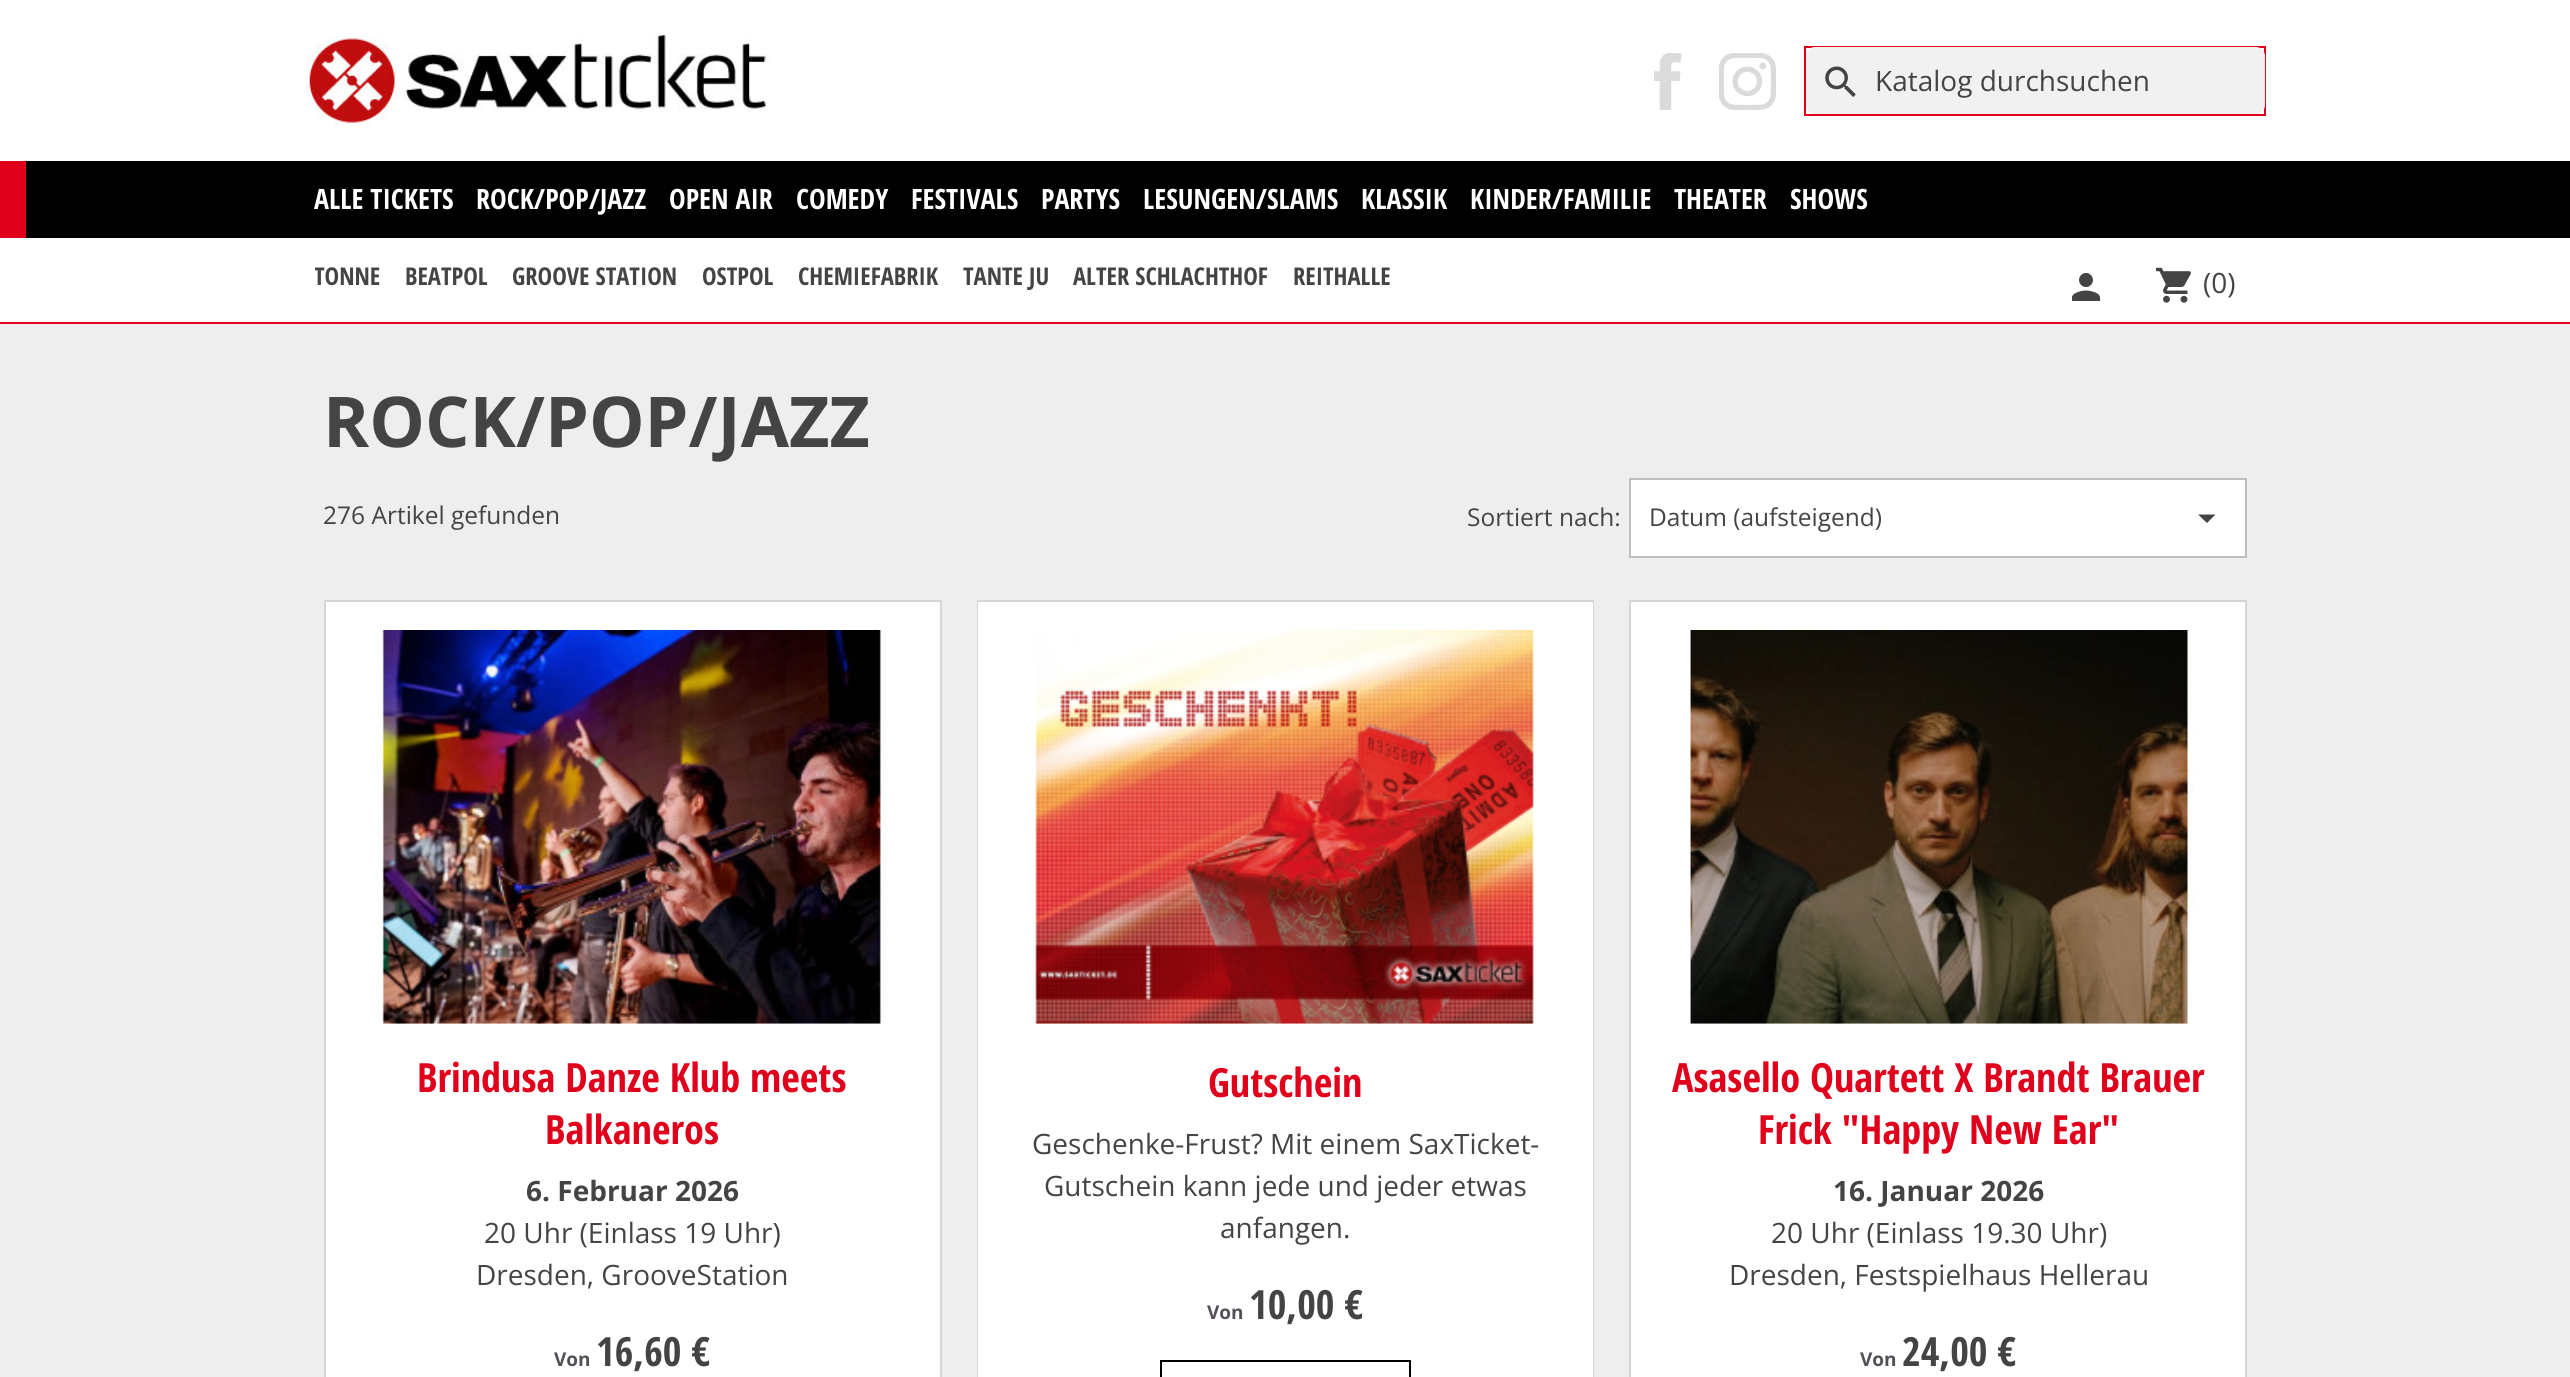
import math
import cairo

surface = cairo.ImageSurface(cairo.FORMAT_RGB24, 2570, 1377)
ctx = cairo.Context(surface)
options = cairo.FontOptions()
options.set_hint_metrics(cairo.HINT_METRICS_OFF)
options.set_hint_style(cairo.HINT_STYLE_NONE)
ctx.set_font_options(options)
ctx.set_miter_limit(4)


def round_rect(x, y, w, h, r):
    ctx.new_sub_path()
    for i, (u, v) in enumerate([(x + w - r, y + h - r), (x + r, y + h - r), (x + r, y + r), (x + w - r, y + r)]):
        ctx.arc(u, v, r, i * math.pi / 2, (i + 1) * math.pi / 2)
    ctx.close_path()


def picture(path, x, y, w, h):
    ctx.save()
    ctx.set_source_surface(cairo.ImageSurface.create_from_png(path), x, y)
    ctx.rectangle(x, y, w, h)
    ctx.fill()
    ctx.restore()


ctx.set_source_rgb(1, 1, 1)
ctx.paint()
ctx.set_source_rgb(0.878, 0, 0.106)
ctx.rectangle(0, 322, 2570, 2)
ctx.fill()
picture("img1.png", 306, 35, 464, 91)
picture("img2.png", 1654, 53, 28, 57)
picture("img3.png", 1719, 53, 57, 57)
ctx.rectangle(1805, 47, 460, 68)
ctx.stroke()
ctx.set_source_rgb(0.945, 0.945, 0.945)
round_rect(1806, 47, 459, 67, 9)
ctx.fill()
picture("img4.png", 1825, 66, 31, 31)
ctx.select_font_face("Open Sans")
ctx.set_font_size(28)
ctx.set_source_rgb(0.267, 0.267, 0.267)
ctx.move_to(1875, 91)
ctx.show_text("Katalog durchsuchen")
ctx.set_source_rgb(0, 0, 0)
ctx.rectangle(26, 161, 2544, 77)
ctx.fill()
ctx.set_source_rgb(0.878, 0, 0.106)
ctx.rectangle(0, 161, 26, 77)
ctx.fill()
ctx.select_font_face("Open Sans Condensed", cairo.FONT_SLANT_NORMAL, cairo.FONT_WEIGHT_BOLD)
ctx.set_source_rgb(1, 1, 1)
ctx.move_to(314, 209)
ctx.show_text("ALLE TICKETS")
ctx.move_to(476, 209)
ctx.show_text("ROCK/POP/JAZZ")
ctx.save()
ctx.rectangle(315, 240, 1099, 72)
ctx.clip()
ctx.set_font_size(24.5)
ctx.set_source_rgb(0.267, 0.267, 0.267)
ctx.move_to(314, 285)
ctx.show_text("TONNE")
ctx.restore()
ctx.set_font_size(24.5)
ctx.set_source_rgb(0.267, 0.267, 0.267)
ctx.move_to(405, 285)
ctx.show_text("BEATPOL")
ctx.move_to(512, 285)
ctx.show_text("GROOVE STATION")
ctx.move_to(702, 285)
ctx.show_text("OSTPOL")
ctx.move_to(798, 285)
ctx.show_text("CHEMIEFABRIK")
ctx.move_to(963, 285)
ctx.show_text("TANTE JU")
ctx.move_to(1073, 285)
ctx.show_text("ALTER SCHLACHTHOF")
ctx.move_to(1293, 285)
ctx.show_text("REITHALLE")
ctx.set_font_size(28)
ctx.set_source_rgb(1, 1, 1)
ctx.move_to(669, 209)
ctx.show_text("OPEN AIR")
ctx.move_to(796, 209)
ctx.show_text("COMEDY")
ctx.move_to(911, 209)
ctx.show_text("FESTIVALS")
ctx.move_to(1041, 209)
ctx.show_text("PARTYS")
ctx.move_to(1143, 209)
ctx.show_text("LESUNGEN/SLAMS")
ctx.move_to(1361, 209)
ctx.show_text("KLASSIK")
ctx.move_to(1470, 209)
ctx.show_text("KINDER/FAMILIE")
ctx.move_to(1674, 209)
ctx.show_text("THEATER")
ctx.move_to(1790, 209)
ctx.show_text("SHOWS")
picture("img5.png", 2071, 273, 30, 28)
picture("img6.png", 2155, 267, 36, 36)
ctx.select_font_face("Open Sans")
ctx.set_source_rgb(0.267, 0.267, 0.267)
ctx.move_to(2203, 293)
ctx.show_text("(0)")
ctx.set_source_rgb(0.933, 0.933, 0.933)
ctx.rectangle(0, 324, 2570, 1053)
ctx.fill()
ctx.select_font_face("Open Sans", cairo.FONT_SLANT_NORMAL, cairo.FONT_WEIGHT_BOLD)
ctx.set_font_size(70)
ctx.set_source_rgb(0.267, 0.267, 0.267)
ctx.move_to(323, 447)
ctx.show_text("ROCK/POP/JAZZ")
ctx.select_font_face("Open Sans")
ctx.set_font_size(24.5)
ctx.move_to(323, 524)
ctx.show_text("276 Artikel gefunden")
ctx.move_to(1467, 526)
ctx.show_text("Sortiert nach:")
ctx.set_source_rgb(1, 1, 1)
ctx.rectangle(1630, 479, 616, 78)
ctx.fill_preserve()
ctx.set_source_rgb(0.749, 0.749, 0.749)
ctx.stroke()
ctx.set_source_rgb(0.267, 0.267, 0.267)
ctx.move_to(1649, 526)
ctx.show_text("Datum (aufsteigend)")
ctx.new_path()
ctx.move_to(2198, 514.5)
ctx.line_to(2215.5, 514.5)
ctx.line_to(2207, 523)
ctx.close_path()
ctx.fill()
ctx.rectangle(325, 601, 616, 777)
ctx.set_source_rgb(0.839, 0.831, 0.831)
ctx.stroke()
ctx.set_source_rgb(1, 1, 1)
ctx.rectangle(326, 602, 614, 775)
ctx.fill()
picture("img7.png", 382, 630, 505, 394)
ctx.select_font_face("Open Sans Condensed", cairo.FONT_SLANT_NORMAL, cairo.FONT_WEIGHT_BOLD)
ctx.set_font_size(40.25)
ctx.set_source_rgb(0.878, 0, 0.106)
ctx.move_to(417, 1092)
ctx.show_text("Brindusa Danze Klub meets")
ctx.move_to(545, 1144)
ctx.show_text("Balkaneros")
ctx.select_font_face("Open Sans", cairo.FONT_SLANT_NORMAL, cairo.FONT_WEIGHT_BOLD)
ctx.set_font_size(28)
ctx.set_source_rgb(0.267, 0.267, 0.267)
ctx.move_to(526, 1201)
ctx.show_text("6. Februar 2026")
ctx.select_font_face("Open Sans")
ctx.move_to(484, 1243)
ctx.show_text("20 Uhr (Einlass 19 Uhr)")
ctx.move_to(476, 1285)
ctx.show_text("Dresden, GrooveStation")
ctx.select_font_face("Open Sans", cairo.FONT_SLANT_NORMAL, cairo.FONT_WEIGHT_BOLD)
ctx.set_font_size(19)
ctx.set_source_rgb(0.333, 0.31, 0.345)
ctx.move_to(554, 1366)
ctx.show_text("Von")
ctx.select_font_face("Open Sans Condensed", cairo.FONT_SLANT_NORMAL, cairo.FONT_WEIGHT_BOLD)
ctx.set_font_size(40.25)
ctx.set_source_rgb(0.267, 0.267, 0.267)
ctx.move_to(596, 1366)
ctx.show_text("16,60 €")
ctx.rectangle(978, 601, 615, 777)
ctx.set_source_rgb(0.839, 0.831, 0.831)
ctx.stroke()
ctx.set_source_rgb(1, 1, 1)
ctx.rectangle(978, 602, 615, 775)
ctx.fill()
picture("img8.png", 1035, 630, 499, 394)
ctx.set_source_rgb(0.878, 0, 0.106)
ctx.move_to(1208, 1097)
ctx.show_text("Gutschein")
ctx.select_font_face("Open Sans")
ctx.set_font_size(28)
ctx.set_source_rgb(0.267, 0.267, 0.267)
ctx.move_to(1032, 1154)
ctx.show_text("Geschenke-Frust? Mit einem SaxTicket-")
ctx.move_to(1044, 1196)
ctx.show_text("Gutschein kann jede und jeder etwas")
ctx.move_to(1220, 1238)
ctx.show_text("anfangen.")
ctx.select_font_face("Open Sans", cairo.FONT_SLANT_NORMAL, cairo.FONT_WEIGHT_BOLD)
ctx.set_font_size(19)
ctx.set_source_rgb(0.333, 0.31, 0.345)
ctx.move_to(1207, 1319)
ctx.show_text("Von")
ctx.select_font_face("Open Sans Condensed", cairo.FONT_SLANT_NORMAL, cairo.FONT_WEIGHT_BOLD)
ctx.set_font_size(40.25)
ctx.set_source_rgb(0.267, 0.267, 0.267)
ctx.move_to(1249, 1319)
ctx.show_text("10,00 €")
ctx.rectangle(1161, 1361, 249, 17)
ctx.set_source_rgb(0, 0, 0)
ctx.stroke()
ctx.rectangle(1630, 601, 616, 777)
ctx.set_source_rgb(0.839, 0.831, 0.831)
ctx.stroke()
ctx.set_source_rgb(1, 1, 1)
ctx.rectangle(1631, 602, 614, 775)
ctx.fill()
picture("img9.png", 1690, 630, 504, 394)
ctx.set_source_rgb(0.878, 0, 0.106)
ctx.move_to(1672, 1092)
ctx.show_text("Asasello Quartett X Brandt Brauer")
ctx.move_to(1758, 1144)
ctx.show_text("Frick \"Happy New Ear\"")
ctx.select_font_face("Open Sans", cairo.FONT_SLANT_NORMAL, cairo.FONT_WEIGHT_BOLD)
ctx.set_font_size(28)
ctx.set_source_rgb(0.267, 0.267, 0.267)
ctx.move_to(1833, 1201)
ctx.show_text("16. Januar 2026")
ctx.select_font_face("Open Sans")
ctx.move_to(1771, 1243)
ctx.show_text("20 Uhr (Einlass 19.30 Uhr)")
ctx.move_to(1729, 1285)
ctx.show_text("Dresden, Festspielhaus Hellerau")
ctx.select_font_face("Open Sans", cairo.FONT_SLANT_NORMAL, cairo.FONT_WEIGHT_BOLD)
ctx.set_font_size(19)
ctx.set_source_rgb(0.333, 0.31, 0.345)
ctx.move_to(1860, 1366)
ctx.show_text("Von")
ctx.select_font_face("Open Sans Condensed", cairo.FONT_SLANT_NORMAL, cairo.FONT_WEIGHT_BOLD)
ctx.set_font_size(40.25)
ctx.set_source_rgb(0.267, 0.267, 0.267)
ctx.move_to(1902, 1366)
ctx.show_text("24,00 €")
surface.write_to_png("page.png")
